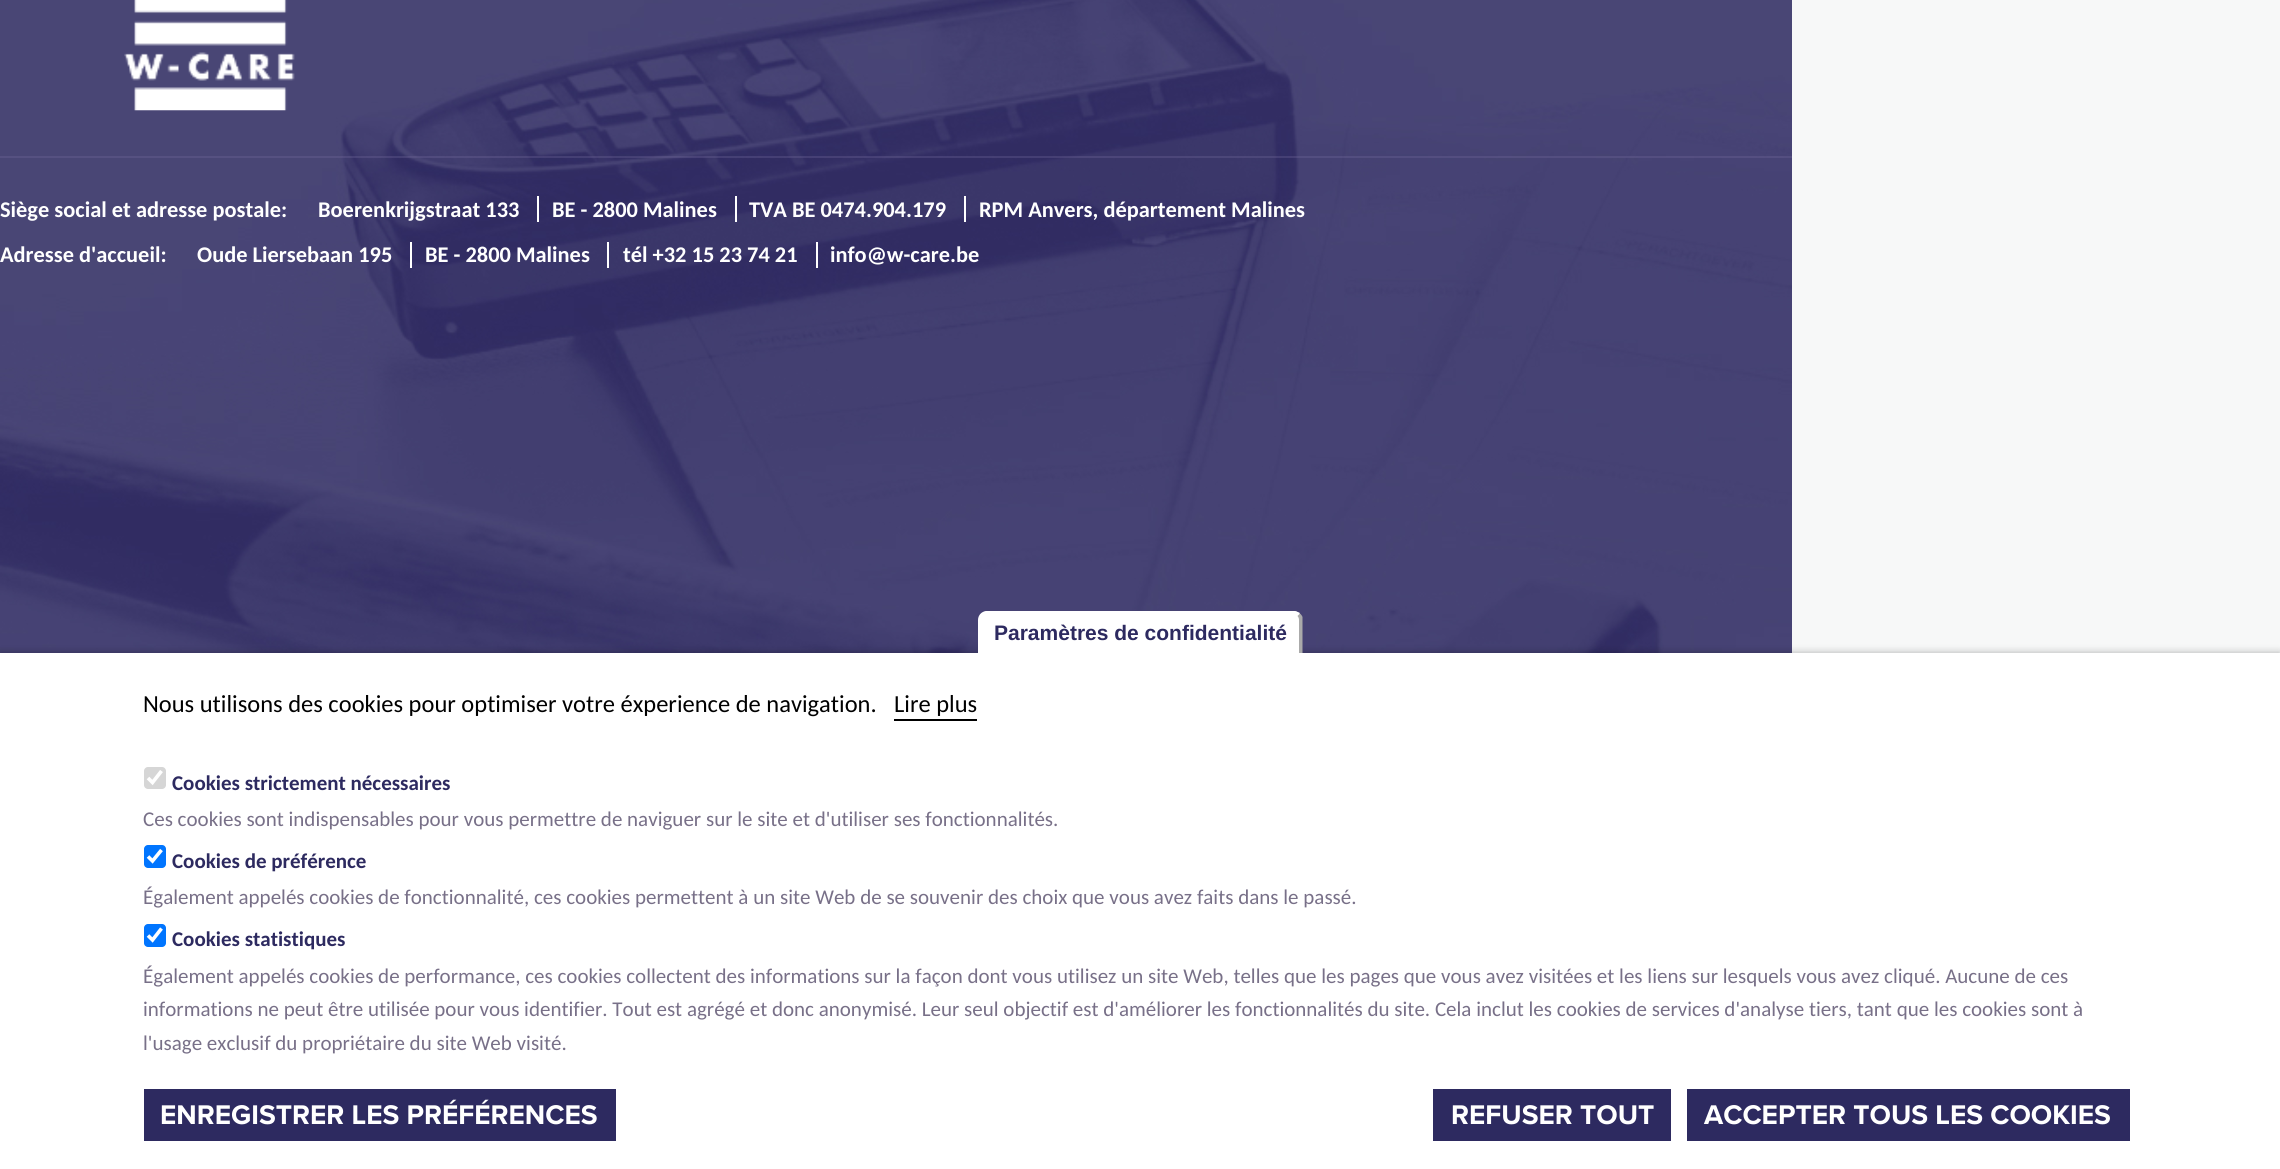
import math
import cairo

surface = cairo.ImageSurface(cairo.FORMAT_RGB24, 2280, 1169)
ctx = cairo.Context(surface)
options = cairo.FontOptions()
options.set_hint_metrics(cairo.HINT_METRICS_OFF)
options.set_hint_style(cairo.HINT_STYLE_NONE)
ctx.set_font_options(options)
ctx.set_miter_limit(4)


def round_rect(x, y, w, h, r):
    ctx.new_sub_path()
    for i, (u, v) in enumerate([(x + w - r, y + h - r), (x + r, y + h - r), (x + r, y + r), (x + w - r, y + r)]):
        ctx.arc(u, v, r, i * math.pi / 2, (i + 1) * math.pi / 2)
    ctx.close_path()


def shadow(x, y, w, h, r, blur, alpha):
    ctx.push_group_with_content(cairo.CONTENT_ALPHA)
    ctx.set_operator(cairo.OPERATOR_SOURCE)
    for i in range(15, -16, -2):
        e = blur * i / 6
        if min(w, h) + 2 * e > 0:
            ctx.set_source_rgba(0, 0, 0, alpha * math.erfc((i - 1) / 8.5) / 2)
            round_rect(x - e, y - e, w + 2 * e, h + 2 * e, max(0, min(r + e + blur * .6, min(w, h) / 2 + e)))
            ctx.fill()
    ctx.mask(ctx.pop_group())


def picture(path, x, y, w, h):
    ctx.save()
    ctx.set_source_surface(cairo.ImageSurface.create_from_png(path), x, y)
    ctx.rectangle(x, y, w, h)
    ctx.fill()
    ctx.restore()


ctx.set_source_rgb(0.965, 0.969, 0.969)
ctx.paint()
picture("img1.png", 0, 0, 1792, 653)
ctx.set_source_rgba(0.463, 0.424, 0.62, 0.3)
ctx.rectangle(0, 156, 1792, 2)
ctx.fill()
picture("img2.png", 124, 0, 171, 111)
ctx.select_font_face("Carlito", cairo.FONT_SLANT_NORMAL, cairo.FONT_WEIGHT_BOLD)
ctx.set_font_size(22.4)
ctx.set_source_rgb(1, 1, 1)
ctx.move_to(0, 217)
ctx.show_text("Siège social et adresse postale:")
ctx.move_to(318, 217)
ctx.show_text("Boerenkrijgstraat 133")
ctx.rectangle(537, 196, 2, 26)
ctx.fill()
ctx.move_to(552, 217)
ctx.show_text("BE - 2800 Malines")
ctx.rectangle(735, 196, 2, 26)
ctx.fill()
ctx.move_to(749, 217)
ctx.show_text("TVA BE 0474.904.179")
ctx.rectangle(964, 196, 2, 26)
ctx.fill()
ctx.move_to(979, 217)
ctx.show_text("RPM Anvers, département Malines")
ctx.move_to(0, 262)
ctx.show_text("Adresse d'accueil:")
ctx.move_to(197, 262)
ctx.show_text("Oude Liersebaan 195")
ctx.rectangle(410, 242, 2, 26)
ctx.fill()
ctx.move_to(425, 262)
ctx.show_text("BE - 2800 Malines")
ctx.rectangle(607, 242, 2, 26)
ctx.fill()
ctx.move_to(623, 262)
ctx.show_text("tél +32 15 23 74 21")
ctx.rectangle(816, 242, 2, 26)
ctx.fill()
ctx.move_to(830, 262)
ctx.show_text("info@w-care.be")
ctx.set_source_rgb(0, 0, 0)
shadow(0, 653, 2280, 516, 0, 4, 0.3)
ctx.set_source_rgb(1, 1, 1)
ctx.rectangle(0, 653, 2280, 516)
ctx.fill()
ctx.new_path()
ctx.move_to(987, 611)
ctx.line_to(1293, 611)
ctx.curve_to(1298, 611, 1302, 615, 1302, 620)
ctx.line_to(1302, 653)
ctx.line_to(978, 653)
ctx.line_to(978, 620)
ctx.curve_to(978, 615, 982, 611, 987, 611)
ctx.close_path()
ctx.fill()
ctx.new_path()
ctx.move_to(988, 611)
ctx.line_to(1294, 611)
ctx.curve_to(1296, 611, 1298, 612, 1300, 613)
ctx.line_to(1298, 616)
ctx.curve_to(1297, 615, 1295, 614, 1294, 614)
ctx.line_to(987, 614)
ctx.line_to(984, 616)
ctx.line_to(982, 614)
ctx.curve_to(983, 612, 986, 611, 988, 611)
ctx.close_path()
ctx.fill()
ctx.set_source_rgb(0.667, 0.667, 0.667)
ctx.new_path()
ctx.move_to(1300, 613.5)
ctx.curve_to(1301, 614.5, 1302, 615.5, 1302.5, 617)
ctx.line_to(1302.5, 653)
ctx.line_to(1299, 653)
ctx.line_to(1299, 620)
ctx.curve_to(1299, 618.5, 1298.5, 617, 1297.5, 616)
ctx.close_path()
ctx.fill()
ctx.set_source_rgb(1, 1, 1)
ctx.new_path()
ctx.move_to(982, 653)
ctx.line_to(979, 653)
ctx.line_to(979, 620)
ctx.curve_to(979, 617.5, 980, 615, 981.5, 613.5)
ctx.line_to(984, 616)
ctx.curve_to(983, 617, 982, 618.5, 982, 620)
ctx.close_path()
ctx.fill()
ctx.select_font_face("Liberation Sans", cairo.FONT_SLANT_NORMAL, cairo.FONT_WEIGHT_BOLD)
ctx.set_font_size(21)
ctx.set_source_rgb(0.176, 0.165, 0.376)
ctx.move_to(994, 640)
ctx.show_text("Paramètres de confidentialité")
ctx.select_font_face("Carlito")
ctx.set_font_size(24.5)
ctx.set_source_rgb(0, 0, 0)
ctx.move_to(143, 712)
ctx.show_text("Nous utilisons des cookies pour optimiser votre éxperience de navigation.")
ctx.rectangle(894, 719, 83, 2)
ctx.fill()
ctx.move_to(894, 712)
ctx.show_text("Lire plus")
ctx.set_source_rgb(0.839, 0.839, 0.839)
round_rect(144, 767, 22, 22, 4)
ctx.fill()
ctx.new_path()
ctx.move_to(148, 778)
ctx.line_to(152.5, 782.5)
ctx.line_to(161.5, 771)
ctx.set_source_rgb(1, 1, 1)
ctx.set_line_width(3.6)
ctx.stroke()
ctx.select_font_face("Carlito", cairo.FONT_SLANT_NORMAL, cairo.FONT_WEIGHT_BOLD)
ctx.set_font_size(21)
ctx.set_source_rgb(0.176, 0.165, 0.376)
ctx.move_to(172, 790)
ctx.show_text("Cookies strictement nécessaires")
ctx.select_font_face("Carlito")
ctx.set_source_rgb(0.471, 0.439, 0.533)
ctx.move_to(143, 826)
ctx.show_text("Ces cookies sont indispensables pour vous permettre de naviguer sur le site et d'utiliser ses fonctionnalités.")
ctx.set_source_rgb(0, 0.459, 1)
round_rect(144, 845, 22, 23, 4)
ctx.fill()
ctx.new_path()
ctx.move_to(148, 856.5)
ctx.line_to(152.5, 861)
ctx.line_to(161.5, 850)
ctx.set_source_rgb(1, 1, 1)
ctx.stroke()
ctx.select_font_face("Carlito", cairo.FONT_SLANT_NORMAL, cairo.FONT_WEIGHT_BOLD)
ctx.set_source_rgb(0.176, 0.165, 0.376)
ctx.move_to(172, 868)
ctx.show_text("Cookies de préférence")
ctx.select_font_face("Carlito")
ctx.set_source_rgb(0.471, 0.439, 0.533)
ctx.move_to(143, 904)
ctx.show_text("Également appelés cookies de fonctionnalité, ces cookies permettent à un site Web de se souvenir des choix que vous avez faits dans le passé.")
ctx.set_source_rgb(0, 0.459, 1)
round_rect(144, 924, 22, 23, 4)
ctx.fill()
ctx.new_path()
ctx.move_to(148, 935.5)
ctx.line_to(152.5, 940)
ctx.line_to(161.5, 928.5)
ctx.set_source_rgb(1, 1, 1)
ctx.stroke()
ctx.select_font_face("Carlito", cairo.FONT_SLANT_NORMAL, cairo.FONT_WEIGHT_BOLD)
ctx.set_source_rgb(0.176, 0.165, 0.376)
ctx.move_to(172, 946)
ctx.show_text("Cookies statistiques")
ctx.select_font_face("Carlito")
ctx.set_source_rgb(0.471, 0.439, 0.533)
ctx.move_to(143, 983)
ctx.show_text("Également appelés cookies de performance, ces cookies collectent des informations sur la façon dont vous utilisez un site Web, telles que les pages que vous avez visitées et les liens sur lesquels vous avez cliqué. Aucune de ces")
ctx.move_to(143, 1016)
ctx.show_text("informations ne peut être utilisée pour vous identifier. Tout est agrégé et donc anonymisé. Leur seul objectif est d'améliorer les fonctionnalités du site. Cela inclut les cookies de services d'analyse tiers, tant que les cookies sont à")
ctx.move_to(143, 1050)
ctx.show_text("l'usage exclusif du propriétaire du site Web visité.")
ctx.set_source_rgb(0.176, 0.165, 0.376)
ctx.rectangle(144, 1089, 472, 52)
ctx.fill()
ctx.select_font_face("Proxima Nova", cairo.FONT_SLANT_NORMAL, cairo.FONT_WEIGHT_BOLD)
ctx.set_font_size(28)
ctx.set_source_rgb(1, 1, 1)
ctx.move_to(160, 1124)
ctx.show_text("ENREGISTRER LES PRÉFÉRENCES")
ctx.set_source_rgb(0.176, 0.165, 0.376)
ctx.rectangle(1433, 1089, 238, 52)
ctx.fill()
ctx.set_source_rgb(1, 1, 1)
ctx.move_to(1451, 1124)
ctx.show_text("REFUSER TOUT")
ctx.set_source_rgb(0.176, 0.165, 0.376)
ctx.rectangle(1687, 1089, 443, 52)
ctx.fill()
ctx.set_source_rgb(1, 1, 1)
ctx.move_to(1704, 1124)
ctx.show_text("ACCEPTER TOUS LES COOKIES")
surface.write_to_png("page.png")
